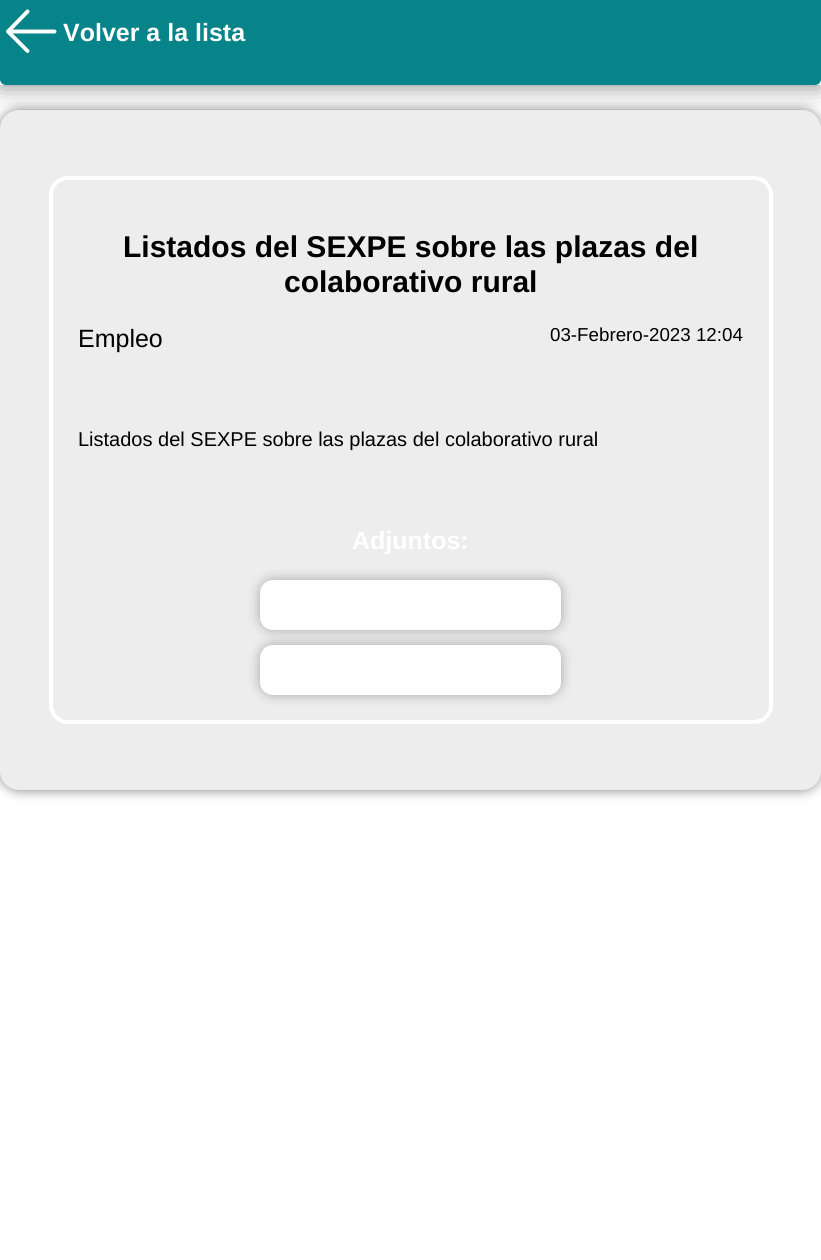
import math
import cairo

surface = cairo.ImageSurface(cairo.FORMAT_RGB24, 821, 1260)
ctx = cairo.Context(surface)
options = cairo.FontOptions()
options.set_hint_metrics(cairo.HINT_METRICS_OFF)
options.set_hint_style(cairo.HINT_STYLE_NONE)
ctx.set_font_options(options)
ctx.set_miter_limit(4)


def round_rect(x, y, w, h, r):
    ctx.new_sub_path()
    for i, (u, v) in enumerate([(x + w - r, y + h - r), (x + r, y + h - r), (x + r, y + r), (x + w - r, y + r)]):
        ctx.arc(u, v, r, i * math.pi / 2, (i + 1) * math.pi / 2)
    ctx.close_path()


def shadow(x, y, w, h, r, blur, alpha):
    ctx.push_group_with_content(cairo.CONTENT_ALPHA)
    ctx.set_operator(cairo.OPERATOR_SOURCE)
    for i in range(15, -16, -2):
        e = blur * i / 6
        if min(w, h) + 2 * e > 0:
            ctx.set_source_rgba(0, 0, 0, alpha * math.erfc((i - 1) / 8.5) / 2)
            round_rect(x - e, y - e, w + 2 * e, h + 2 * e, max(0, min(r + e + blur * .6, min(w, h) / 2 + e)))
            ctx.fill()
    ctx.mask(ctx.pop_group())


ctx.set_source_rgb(1, 1, 1)
ctx.paint()
ctx.save()
ctx.rectangle(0, 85, 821, 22)
ctx.clip()
ctx.set_source_rgb(0, 0, 0)
shadow(0, 0, 821, 85, 0, 12.5, 0.5)
ctx.restore()
ctx.set_source_rgb(0.031, 0.514, 0.541)
ctx.new_path()
ctx.move_to(0, 0)
ctx.line_to(821, 0)
ctx.line_to(821, 79)
ctx.curve_to(821, 82.5, 818.5, 85, 815, 85)
ctx.line_to(6, 85)
ctx.curve_to(2.5, 85, 0, 82.5, 0, 79)
ctx.close_path()
ctx.fill()
ctx.new_path()
ctx.move_to(27.5, 51)
ctx.line_to(8, 31.5)
ctx.move_to(8, 31.5)
ctx.line_to(27.5, 11.5)
ctx.move_to(8, 31.5)
ctx.line_to(54.5, 31.5)
ctx.set_source_rgb(1, 1, 1)
ctx.set_line_width(3.9)
ctx.set_line_cap(cairo.LINE_CAP_ROUND)
ctx.set_line_join(cairo.LINE_JOIN_ROUND)
ctx.stroke()
ctx.select_font_face("Liberation Sans", cairo.FONT_SLANT_NORMAL, cairo.FONT_WEIGHT_BOLD)
ctx.set_font_size(25)
ctx.move_to(63, 41)
ctx.show_text("Volver a la lista")
ctx.set_source_rgb(0, 0, 0)
shadow(0, 110, 821, 680, 19, 6, 0.5)
ctx.set_source_rgb(0.929, 0.929, 0.929)
round_rect(0, 110, 821, 680, 19)
ctx.fill()
round_rect(51, 178, 720, 544, 17)
ctx.set_source_rgb(1, 1, 1)
ctx.set_line_width(4)
ctx.set_line_cap(cairo.LINE_CAP_BUTT)
ctx.set_line_join(cairo.LINE_JOIN_MITER)
ctx.stroke()
ctx.set_font_size(30)
ctx.set_source_rgb(0, 0, 0)
ctx.move_to(123, 257)
ctx.show_text("Listados del SEXPE sobre las plazas del")
ctx.move_to(284, 292)
ctx.show_text("colaborativo rural")
ctx.select_font_face("Liberation Sans")
ctx.set_font_size(25)
ctx.move_to(78, 347)
ctx.show_text("Empleo")
ctx.set_font_size(18.75)
ctx.move_to(550, 341)
ctx.show_text("03-Febrero-2023 12:04")
ctx.set_font_size(20)
ctx.move_to(78, 446)
ctx.show_text("Listados del SEXPE sobre las plazas del colaborativo rural")
ctx.select_font_face("Liberation Sans", cairo.FONT_SLANT_NORMAL, cairo.FONT_WEIGHT_BOLD)
ctx.set_font_size(25)
ctx.set_source_rgb(1, 1, 1)
ctx.move_to(352, 549)
ctx.show_text("Adjuntos:")
ctx.set_source_rgb(0, 0, 0)
shadow(260, 580, 301, 50, 13, 6, 0.3)
ctx.set_source_rgb(1, 1, 1)
round_rect(260, 580, 301, 50, 13)
ctx.fill()
ctx.set_source_rgb(0, 0, 0)
shadow(260, 645, 301, 50, 13, 6, 0.3)
ctx.set_source_rgb(1, 1, 1)
round_rect(260, 645, 301, 50, 13)
ctx.fill()
surface.write_to_png("page.png")
